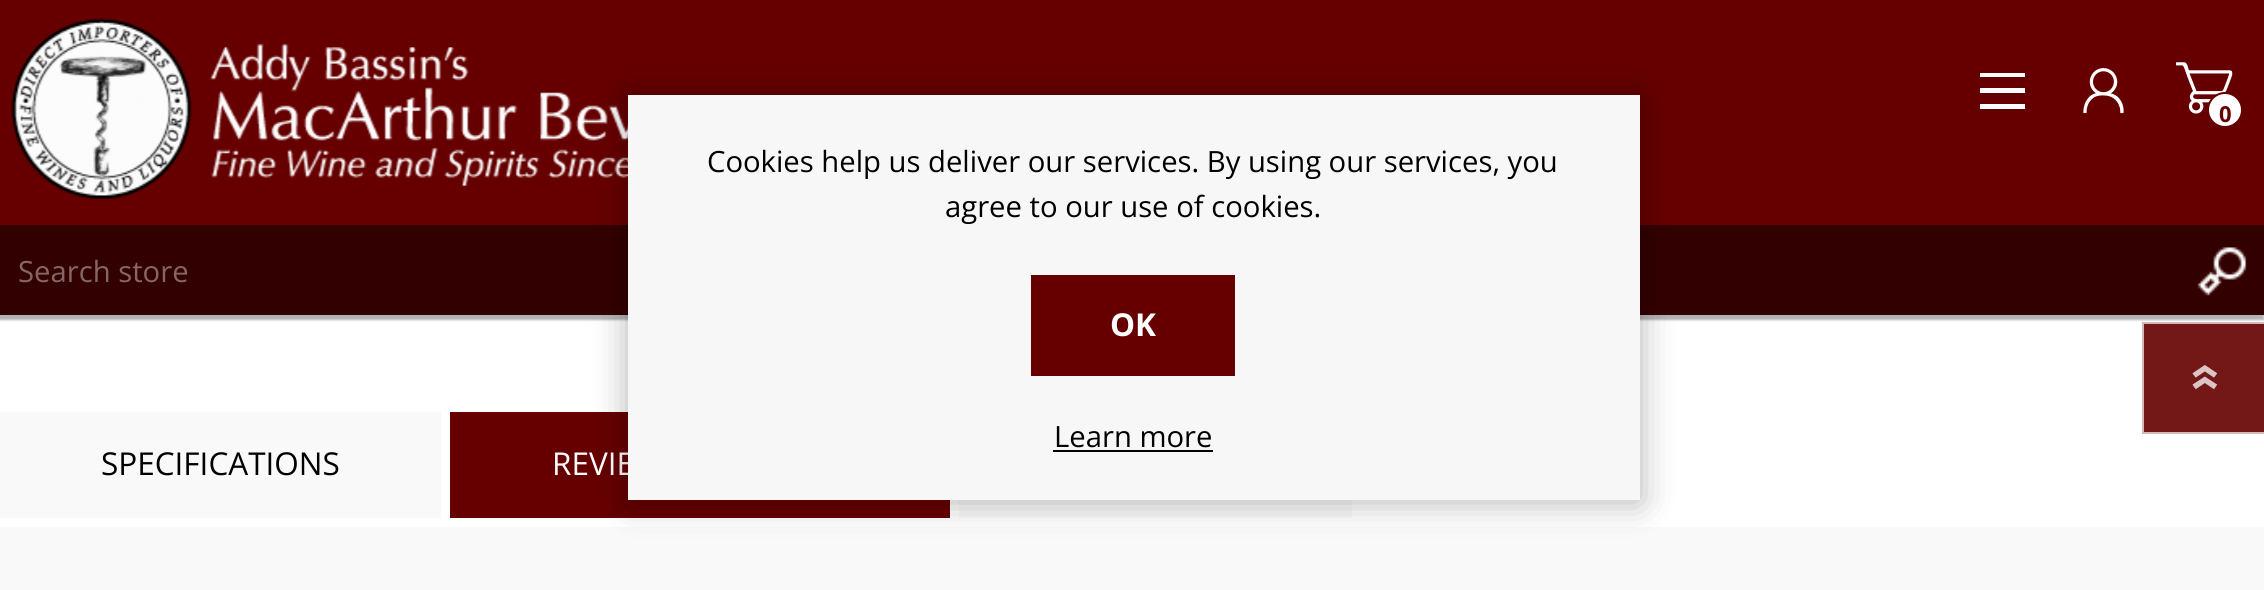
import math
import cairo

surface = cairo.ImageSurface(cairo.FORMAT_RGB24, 2264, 590)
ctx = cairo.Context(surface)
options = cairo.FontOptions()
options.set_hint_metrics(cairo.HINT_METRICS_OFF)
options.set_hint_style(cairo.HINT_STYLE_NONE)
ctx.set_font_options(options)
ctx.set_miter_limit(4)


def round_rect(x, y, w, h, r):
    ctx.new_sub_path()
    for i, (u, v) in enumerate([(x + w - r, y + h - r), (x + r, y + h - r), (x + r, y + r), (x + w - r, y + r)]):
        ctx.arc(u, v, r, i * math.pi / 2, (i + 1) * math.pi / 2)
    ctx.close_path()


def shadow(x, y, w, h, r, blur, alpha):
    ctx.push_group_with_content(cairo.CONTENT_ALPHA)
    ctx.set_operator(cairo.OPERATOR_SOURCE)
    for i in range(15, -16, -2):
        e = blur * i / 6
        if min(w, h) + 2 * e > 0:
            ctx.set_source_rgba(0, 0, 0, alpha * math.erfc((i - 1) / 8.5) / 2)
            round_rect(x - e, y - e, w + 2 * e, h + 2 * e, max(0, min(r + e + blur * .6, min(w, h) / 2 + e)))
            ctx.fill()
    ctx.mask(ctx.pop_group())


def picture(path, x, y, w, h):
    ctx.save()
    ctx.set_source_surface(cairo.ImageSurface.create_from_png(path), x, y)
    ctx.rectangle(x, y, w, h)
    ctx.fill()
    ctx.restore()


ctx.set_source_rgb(1, 1, 1)
ctx.paint()
ctx.set_source_rgb(0.4, 0, 0)
ctx.rectangle(0, 0, 2264, 225)
ctx.fill()
ctx.set_source_rgb(1, 1, 1)
ctx.new_path()
ctx.move_to(1980, 73)
ctx.line_to(1980, 77)
ctx.line_to(2025, 77)
ctx.line_to(2025, 73)
ctx.close_path()
ctx.move_to(1980, 93)
ctx.line_to(2025, 93)
ctx.line_to(2025, 88)
ctx.line_to(1980, 88)
ctx.close_path()
ctx.move_to(1980, 109)
ctx.line_to(2025, 109)
ctx.line_to(2025, 104)
ctx.line_to(1980, 104)
ctx.close_path()
ctx.fill()
picture("img1.png", 2083, 68, 41, 46)
picture("img2.png", 2176, 62, 57, 52)
ctx.arc(2225, 110, 17, 0, 2 * math.pi)
ctx.fill_preserve()
ctx.set_source_rgb(0.4, 0, 0)
ctx.stroke()
ctx.select_font_face("Open Sans", cairo.FONT_SLANT_NORMAL, cairo.FONT_WEIGHT_BOLD)
ctx.set_font_size(22)
ctx.move_to(2219, 122)
ctx.show_text("0")
picture("img3.png", 11, 18, 617, 181)
ctx.set_source_rgb(0, 0, 0)
shadow(-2, 230, 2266, 90, 0, 1, 0.3)
ctx.set_source_rgb(0.2, 0, 0)
ctx.rectangle(0, 225, 2264, 90)
ctx.fill()
ctx.select_font_face("Open Sans")
ctx.set_font_size(29.25)
ctx.set_source_rgb(0.522, 0.4, 0.4)
ctx.move_to(18, 282)
ctx.show_text("Search store")
picture("img4.png", 2197, 247, 50, 49)
ctx.set_source_rgb(0.976, 0.976, 0.976)
ctx.rectangle(0, 412, 441, 106)
ctx.fill()
ctx.set_font_size(31.5)
ctx.set_source_rgb(0, 0, 0)
ctx.move_to(101, 475)
ctx.show_text("SPECIFICATIONS")
ctx.set_source_rgb(0.4, 0, 0)
ctx.rectangle(450, 412, 500, 106)
ctx.fill()
ctx.set_source_rgb(1, 1, 1)
ctx.move_to(552, 475)
ctx.show_text("REVIE")
ctx.set_source_rgb(0.976, 0.976, 0.976)
ctx.rectangle(959, 500, 393, 18)
ctx.fill()
ctx.rectangle(0, 527, 2264, 63)
ctx.fill()
ctx.set_source_rgb(0, 0, 0)
shadow(628, 97, 1012, 405, 0, 17, 0.3)
ctx.set_source_rgb(0.965, 0.965, 0.965)
ctx.rectangle(628, 95, 1012, 405)
ctx.fill()
ctx.set_font_size(29.25)
ctx.set_source_rgb(0, 0, 0)
ctx.move_to(707, 172)
ctx.show_text("Cookies help us deliver our services. By using our services, you")
ctx.move_to(945, 217)
ctx.show_text("agree to our use of cookies.")
ctx.set_source_rgb(0.4, 0, 0)
ctx.rectangle(1031, 275, 204, 101)
ctx.fill()
ctx.select_font_face("Open Sans", cairo.FONT_SLANT_NORMAL, cairo.FONT_WEIGHT_BOLD)
ctx.set_font_size(31.5)
ctx.set_source_rgb(1, 1, 1)
ctx.move_to(1110, 336)
ctx.show_text("OK")
ctx.select_font_face("Open Sans")
ctx.set_font_size(29.25)
ctx.set_source_rgb(0, 0, 0)
ctx.move_to(1054, 447)
ctx.show_text("Learn more")
ctx.rectangle(1053, 450, 160, 2)
ctx.fill()
ctx.set_source_rgb(0.455, 0.09, 0.09)
ctx.rectangle(2144, 324, 120, 108)
ctx.fill()
picture("img6.png", 2192, 365, 26, 25)
ctx.rectangle(2143, 323, 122, 110)
ctx.set_source_rgb(0.835, 0.725, 0.725)
ctx.stroke()
picture("img5.png", 2192, 365, 26, 25)
surface.write_to_png("page.png")
